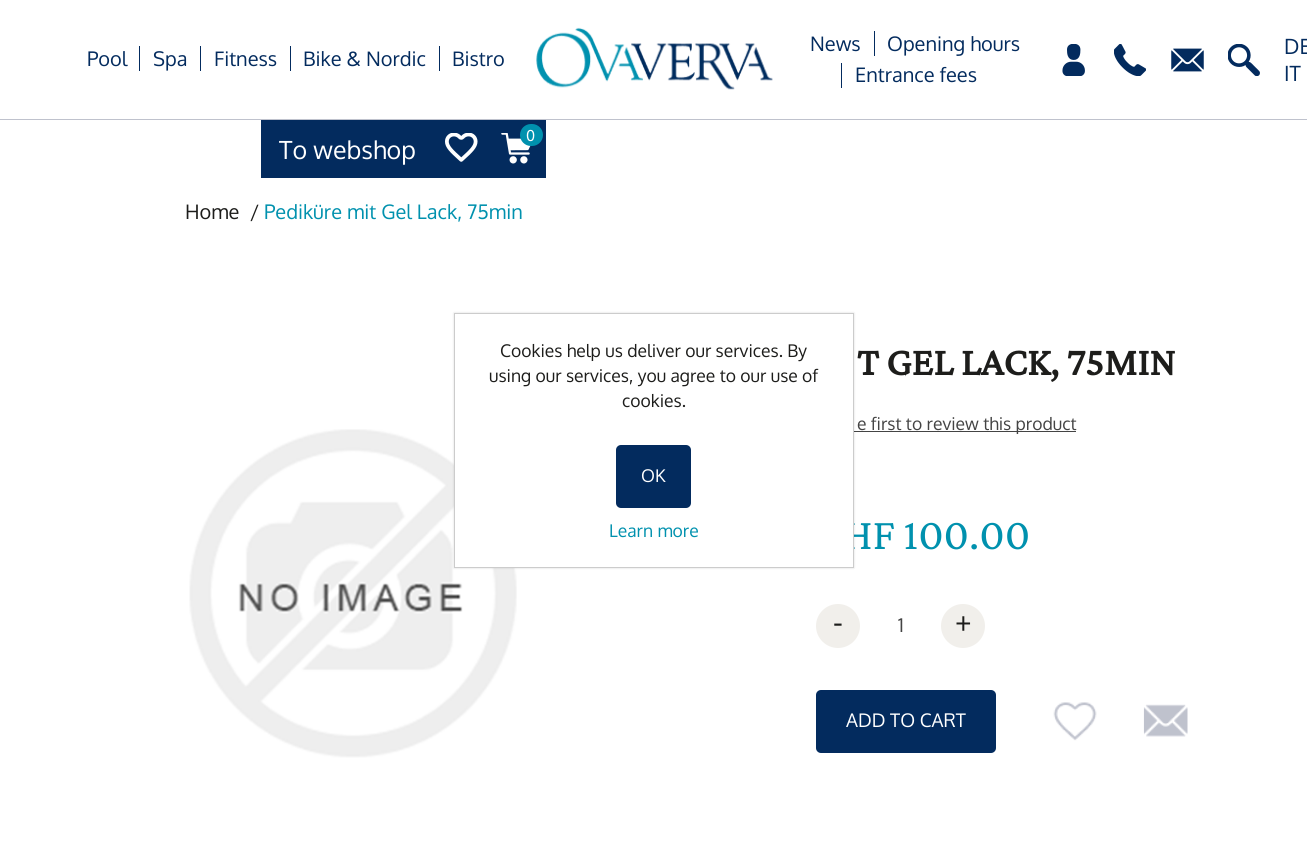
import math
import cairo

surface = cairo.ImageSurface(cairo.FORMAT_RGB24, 1307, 848)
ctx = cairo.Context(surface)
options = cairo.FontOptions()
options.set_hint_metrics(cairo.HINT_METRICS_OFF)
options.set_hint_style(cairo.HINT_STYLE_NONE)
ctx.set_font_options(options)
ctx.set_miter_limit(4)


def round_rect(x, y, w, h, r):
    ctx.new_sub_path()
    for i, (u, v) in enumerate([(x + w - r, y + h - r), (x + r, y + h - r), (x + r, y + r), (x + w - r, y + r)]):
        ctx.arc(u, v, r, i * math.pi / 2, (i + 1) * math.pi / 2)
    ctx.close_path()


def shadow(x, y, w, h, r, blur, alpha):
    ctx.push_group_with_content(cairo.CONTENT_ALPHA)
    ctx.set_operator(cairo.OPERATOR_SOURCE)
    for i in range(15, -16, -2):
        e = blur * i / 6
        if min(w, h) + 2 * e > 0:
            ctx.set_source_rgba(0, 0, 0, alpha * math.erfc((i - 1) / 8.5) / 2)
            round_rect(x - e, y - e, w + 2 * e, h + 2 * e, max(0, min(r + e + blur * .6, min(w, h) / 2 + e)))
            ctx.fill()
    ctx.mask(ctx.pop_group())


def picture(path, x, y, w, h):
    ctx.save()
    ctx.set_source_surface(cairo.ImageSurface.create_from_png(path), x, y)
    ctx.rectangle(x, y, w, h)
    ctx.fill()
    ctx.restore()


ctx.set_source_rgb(1, 1, 1)
ctx.paint()
ctx.set_source_rgb(0.749, 0.761, 0.804)
ctx.rectangle(0, 119, 1307, 1)
ctx.fill()
picture("img1.png", 536, 27, 237, 63)
ctx.select_font_face("Oxygen")
ctx.set_font_size(20)
ctx.set_source_rgb(0.012, 0.169, 0.369)
ctx.move_to(810, 51)
ctx.show_text("News")
ctx.rectangle(874, 31, 1, 25)
ctx.fill()
ctx.move_to(887, 51)
ctx.show_text("Opening hours")
ctx.rectangle(841, 63, 1, 25)
ctx.fill()
ctx.move_to(855, 82)
ctx.show_text("Entrance fees")
picture("img2.png", 1062, 44, 23, 32)
picture("img3.png", 1114, 44, 32, 32)
picture("img4.png", 1171, 48, 33, 24)
picture("img5.png", 1228, 44, 32, 32)
ctx.set_font_size(21)
ctx.move_to(1284, 54)
ctx.show_text("DE")
ctx.move_to(1284, 81)
ctx.show_text("IT")
ctx.rectangle(261, 120, 285, 58)
ctx.fill()
picture("img6.png", 445, 133, 33, 29)
picture("img7.png", 501, 133, 30, 31)
ctx.set_source_rgb(0, 0.569, 0.682)
round_rect(520, 124, 23, 22, 11)
ctx.fill()
ctx.set_font_size(15)
ctx.set_source_rgb(1, 1, 1)
ctx.move_to(526, 141)
ctx.show_text("0")
ctx.set_font_size(25)
ctx.move_to(279, 159)
ctx.show_text("To webshop")
ctx.set_font_size(20)
ctx.set_source_rgb(0.012, 0.169, 0.369)
ctx.move_to(87, 66)
ctx.show_text("Pool")
ctx.rectangle(139, 46, 1, 25)
ctx.fill()
ctx.move_to(153, 66)
ctx.show_text("Spa")
ctx.rectangle(200, 46, 1, 25)
ctx.fill()
ctx.move_to(214, 66)
ctx.show_text("Fitness")
ctx.rectangle(290, 46, 1, 25)
ctx.fill()
ctx.move_to(303, 66)
ctx.show_text("Bike & Nordic")
ctx.rectangle(439, 46, 1, 25)
ctx.fill()
ctx.move_to(452, 66)
ctx.show_text("Bistro")
ctx.set_source_rgb(0.114, 0.114, 0.106)
ctx.move_to(185, 219)
ctx.show_text("Home")
ctx.move_to(250, 219)
ctx.show_text("/")
ctx.set_source_rgb(0, 0.569, 0.682)
ctx.move_to(264, 219)
ctx.show_text("Pediküre mit Gel Lack, 75min")
picture("img8.png", 189, 429, 328, 329)
ctx.select_font_face("Crimson Pro", cairo.FONT_SLANT_NORMAL, cairo.FONT_WEIGHT_BOLD)
ctx.set_font_size(40)
ctx.set_source_rgb(0.114, 0.114, 0.106)
ctx.move_to(857, 375)
ctx.show_text("T GEL LACK, 75MIN")
ctx.set_source_rgb(0.267, 0.267, 0.267)
ctx.rectangle(854, 431, 222, 1)
ctx.fill()
ctx.select_font_face("Oxygen")
ctx.set_font_size(17.5)
ctx.move_to(857, 430)
ctx.show_text("e first to review this product")
ctx.select_font_face("Crimson Pro")
ctx.set_font_size(45)
ctx.set_source_rgb(0, 0.569, 0.682)
ctx.move_to(843, 549)
ctx.show_text("HF 100.00")
ctx.set_source_rgb(0.945, 0.937, 0.918)
ctx.new_path()
ctx.arc(838, 626, 22, 0, 2 * math.pi)
ctx.fill()
ctx.select_font_face("Oxygen")
ctx.set_font_size(30)
ctx.set_source_rgb(0.114, 0.114, 0.106)
ctx.move_to(833, 633)
ctx.show_text("-")
ctx.set_font_size(18.75)
ctx.set_source_rgb(0.267, 0.267, 0.267)
ctx.move_to(898, 632)
ctx.show_text("1")
ctx.set_source_rgb(0.945, 0.937, 0.918)
ctx.new_path()
ctx.arc(963, 626, 22, 0, 2 * math.pi)
ctx.fill()
ctx.set_font_size(30)
ctx.set_source_rgb(0.114, 0.114, 0.106)
ctx.move_to(955, 633)
ctx.show_text("+")
ctx.set_source_rgb(0.012, 0.169, 0.369)
round_rect(816, 690, 180, 63, 5)
ctx.fill()
ctx.set_font_size(18.75)
ctx.set_source_rgb(1, 1, 1)
ctx.move_to(846, 727)
ctx.show_text("ADD TO CART")
picture("img9.png", 1053, 702, 44, 39)
picture("img10.png", 1143, 704, 45, 33)
ctx.set_source_rgb(0, 0, 0)
shadow(454, 313, 400, 255, 0, 1, 0.15)
ctx.set_source_rgb(1, 1, 1)
ctx.rectangle(454.5, 313.5, 399, 254)
ctx.fill_preserve()
ctx.set_source_rgb(0.8, 0.8, 0.8)
ctx.set_line_width(1)
ctx.stroke()
ctx.set_font_size(17.5)
ctx.set_source_rgb(0.114, 0.114, 0.106)
ctx.move_to(500, 357)
ctx.show_text("Cookies help us deliver our services. By")
ctx.move_to(489, 382)
ctx.show_text("using our services, you agree to our use of")
ctx.move_to(622, 407)
ctx.show_text("cookies.")
ctx.set_source_rgb(0.012, 0.169, 0.369)
round_rect(616, 445, 75, 63, 5)
ctx.fill()
ctx.set_source_rgb(1, 1, 1)
ctx.move_to(641, 482)
ctx.show_text("OK")
ctx.set_source_rgb(0, 0.569, 0.682)
ctx.move_to(609, 537)
ctx.show_text("Learn more")
surface.write_to_png("page.png")
